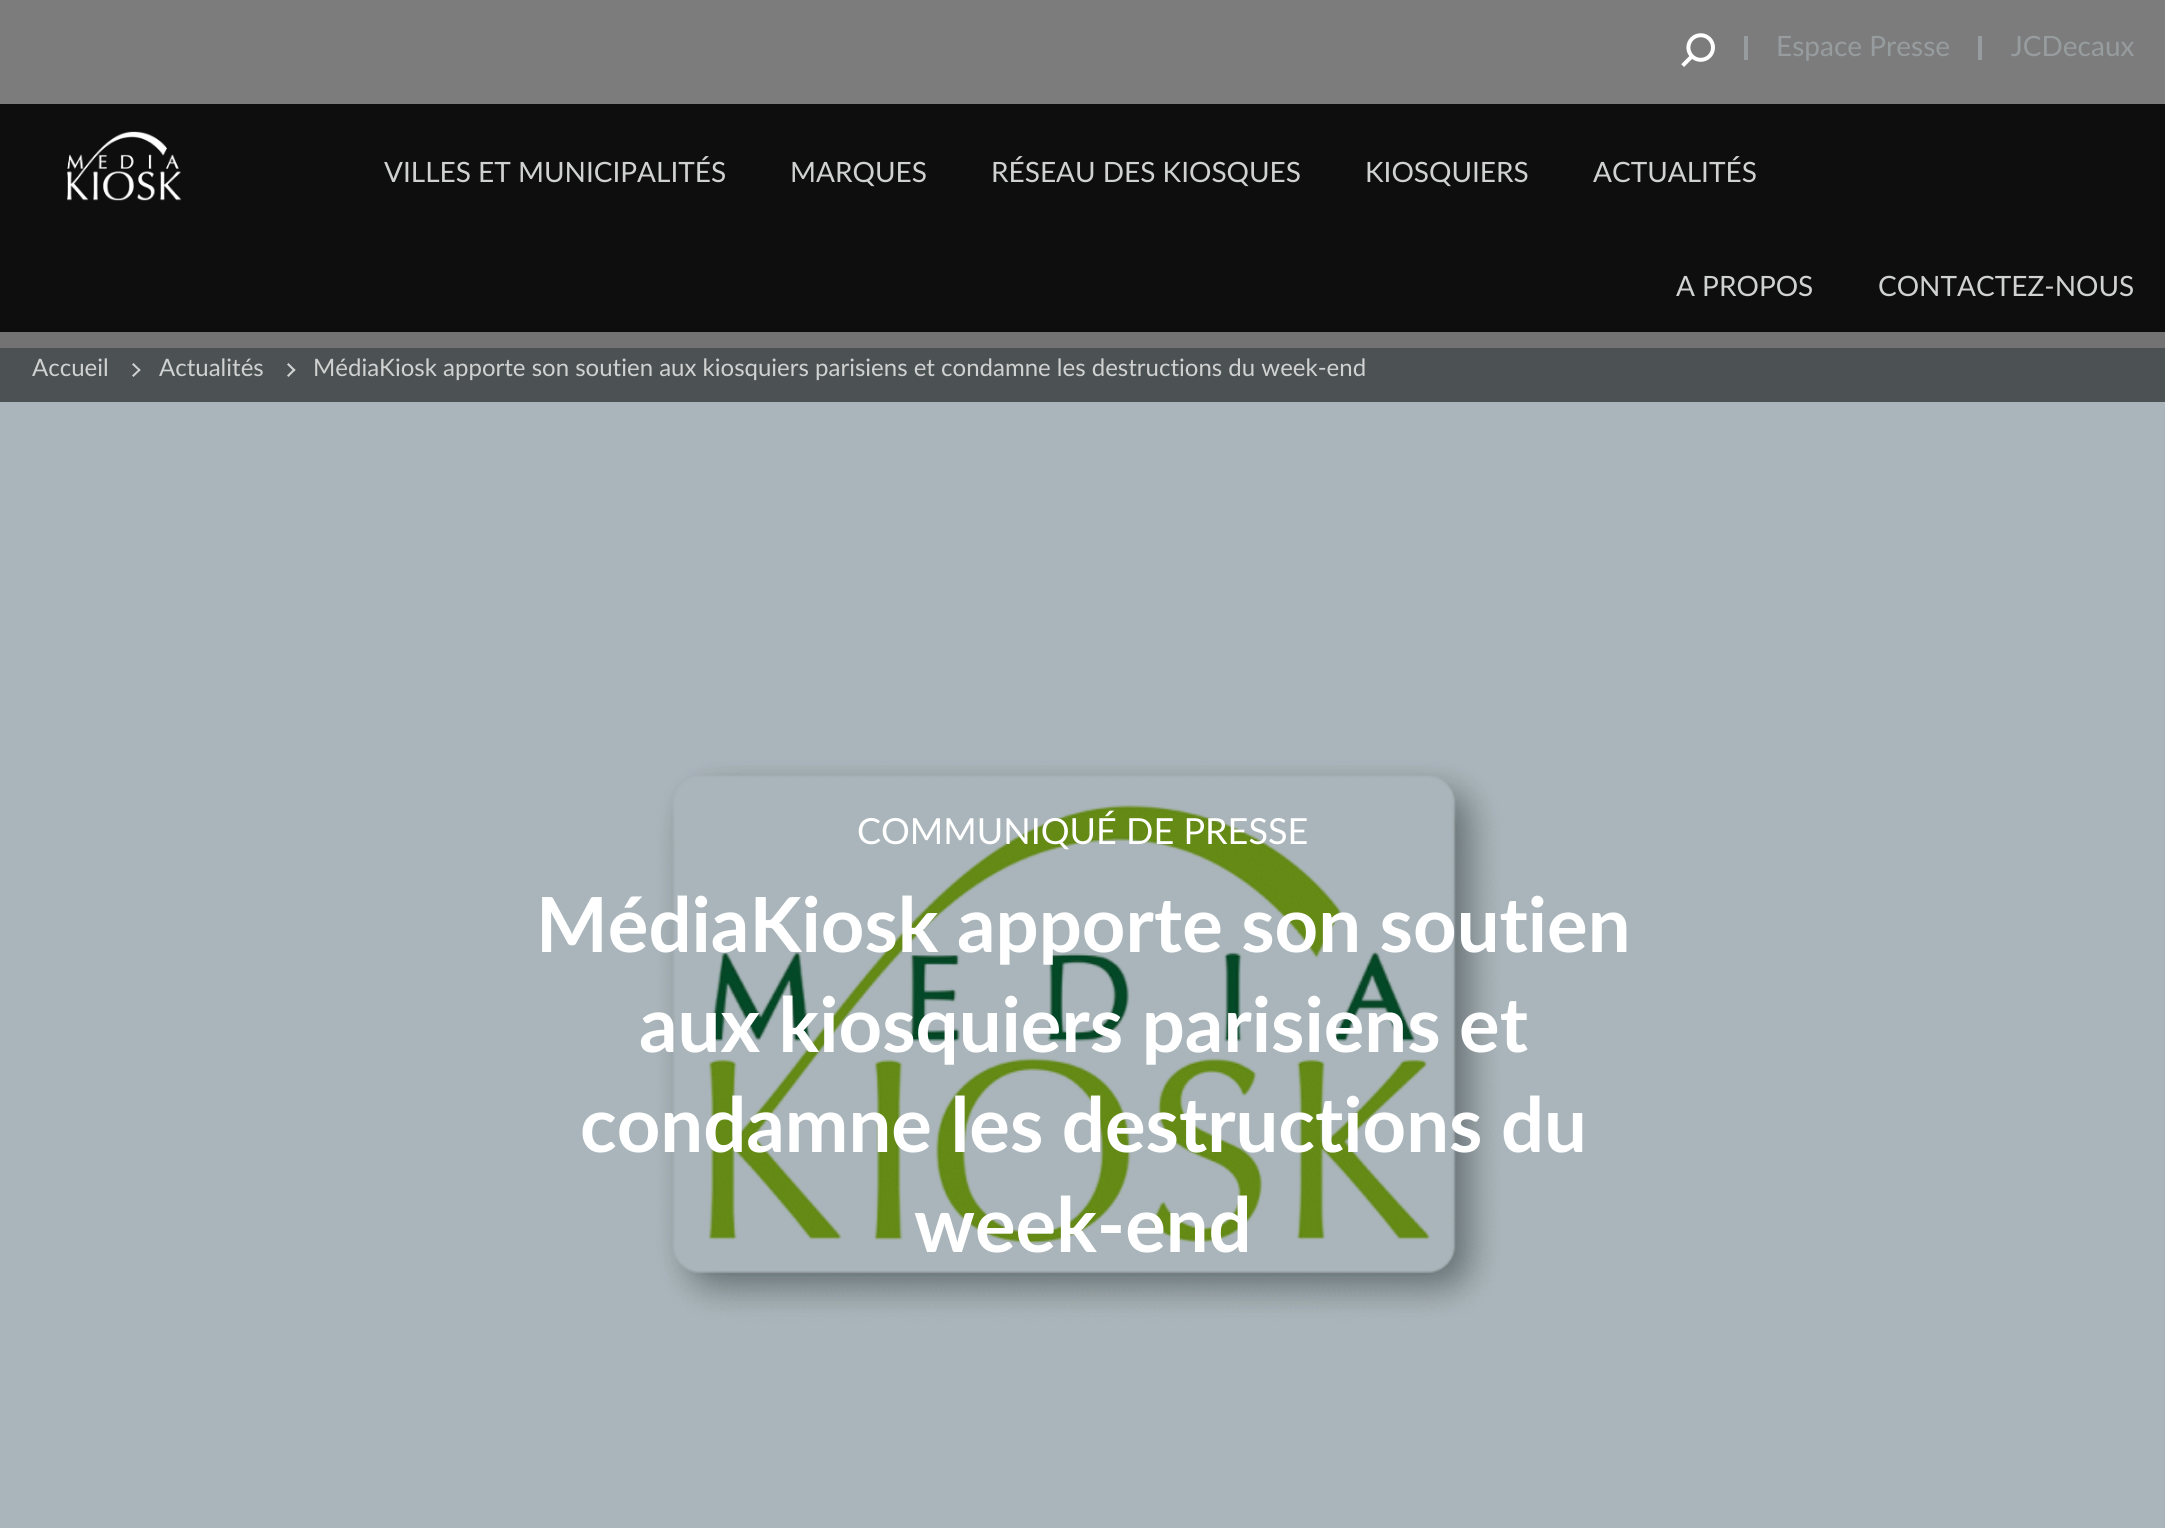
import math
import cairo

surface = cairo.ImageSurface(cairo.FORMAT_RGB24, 2165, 1530)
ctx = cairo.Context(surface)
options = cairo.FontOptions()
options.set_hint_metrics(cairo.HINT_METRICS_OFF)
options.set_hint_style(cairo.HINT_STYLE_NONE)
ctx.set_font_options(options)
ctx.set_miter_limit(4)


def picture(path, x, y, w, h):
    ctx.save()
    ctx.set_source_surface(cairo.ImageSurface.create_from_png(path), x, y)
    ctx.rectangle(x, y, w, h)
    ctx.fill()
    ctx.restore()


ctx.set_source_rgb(1, 1, 1)
ctx.paint()
ctx.set_source_rgb(0.055, 0.055, 0.055)
ctx.rectangle(0, 104, 2165, 228)
ctx.fill()
ctx.set_source_rgb(0.486, 0.486, 0.486)
ctx.rectangle(0, 0, 2165, 104)
ctx.fill()
picture("img1.png", 1681, 33, 34, 34)
ctx.set_source_rgb(0.592, 0.612, 0.624)
ctx.rectangle(1744, 36, 4, 24)
ctx.fill()
ctx.select_font_face("Lato")
ctx.set_font_size(28)
ctx.move_to(1776, 56)
ctx.show_text("Espace Presse")
ctx.rectangle(1978, 36, 4, 24)
ctx.fill()
ctx.move_to(2011, 56)
ctx.show_text("JCDecaux")
picture("img2.png", 67, 131, 115, 70)
ctx.set_source_rgb(0.816, 0.82, 0.82)
ctx.move_to(384, 182)
ctx.show_text("VILLES ET MUNICIPALITÉS")
ctx.move_to(790, 182)
ctx.show_text("MARQUES")
ctx.move_to(991, 182)
ctx.show_text("RÉSEAU DES KIOSQUES")
ctx.move_to(1365, 182)
ctx.show_text("KIOSQUIERS")
ctx.move_to(1593, 182)
ctx.show_text("ACTUALITÉS")
ctx.move_to(1676, 296)
ctx.show_text("A PROPOS")
ctx.move_to(1878, 296)
ctx.show_text("CONTACTEZ-NOUS")
picture("img3.png", 0, 348, 2165, 1180)
ctx.set_source_rgba(0.004, 0.004, 0.004, 0.55)
ctx.rectangle(0, 332, 2165, 70)
ctx.fill()
ctx.set_font_size(24)
ctx.set_source_rgb(0.816, 0.82, 0.82)
ctx.move_to(32, 376)
ctx.show_text("Accueil")
ctx.new_path()
ctx.move_to(133.5, 363)
ctx.line_to(140.5, 370)
ctx.line_to(139.5, 371.5)
ctx.line_to(132, 364.5)
ctx.close_path()
ctx.fill()
ctx.new_path()
ctx.move_to(139.5, 368.5)
ctx.line_to(140.5, 370)
ctx.line_to(133.5, 377)
ctx.line_to(132, 375.5)
ctx.close_path()
ctx.fill()
ctx.move_to(159, 376)
ctx.show_text("Actualités")
ctx.new_path()
ctx.move_to(288.5, 363)
ctx.line_to(295.5, 370)
ctx.line_to(294, 371.5)
ctx.line_to(287, 364.5)
ctx.close_path()
ctx.fill()
ctx.new_path()
ctx.move_to(294, 368.5)
ctx.line_to(295.5, 370)
ctx.line_to(288.5, 377)
ctx.line_to(287, 375.5)
ctx.close_path()
ctx.fill()
ctx.move_to(313, 376)
ctx.show_text("MédiaKiosk apporte son soutien aux kiosquiers parisiens et condamne les destructions du week-end")
ctx.set_font_size(36)
ctx.set_source_rgb(1, 1, 1)
ctx.move_to(857, 844)
ctx.show_text("COMMUNIQUÉ DE PRESSE")
ctx.select_font_face("Lato", cairo.FONT_SLANT_NORMAL, cairo.FONT_WEIGHT_BOLD)
ctx.set_font_size(76)
ctx.move_to(536, 952)
ctx.show_text("MédiaKiosk apporte son soutien")
ctx.move_to(639, 1052)
ctx.show_text("aux kiosquiers parisiens et")
ctx.move_to(580, 1152)
ctx.show_text("condamne les destructions du")
ctx.move_to(914, 1252)
ctx.show_text("week-end")
surface.write_to_png("page.png")
